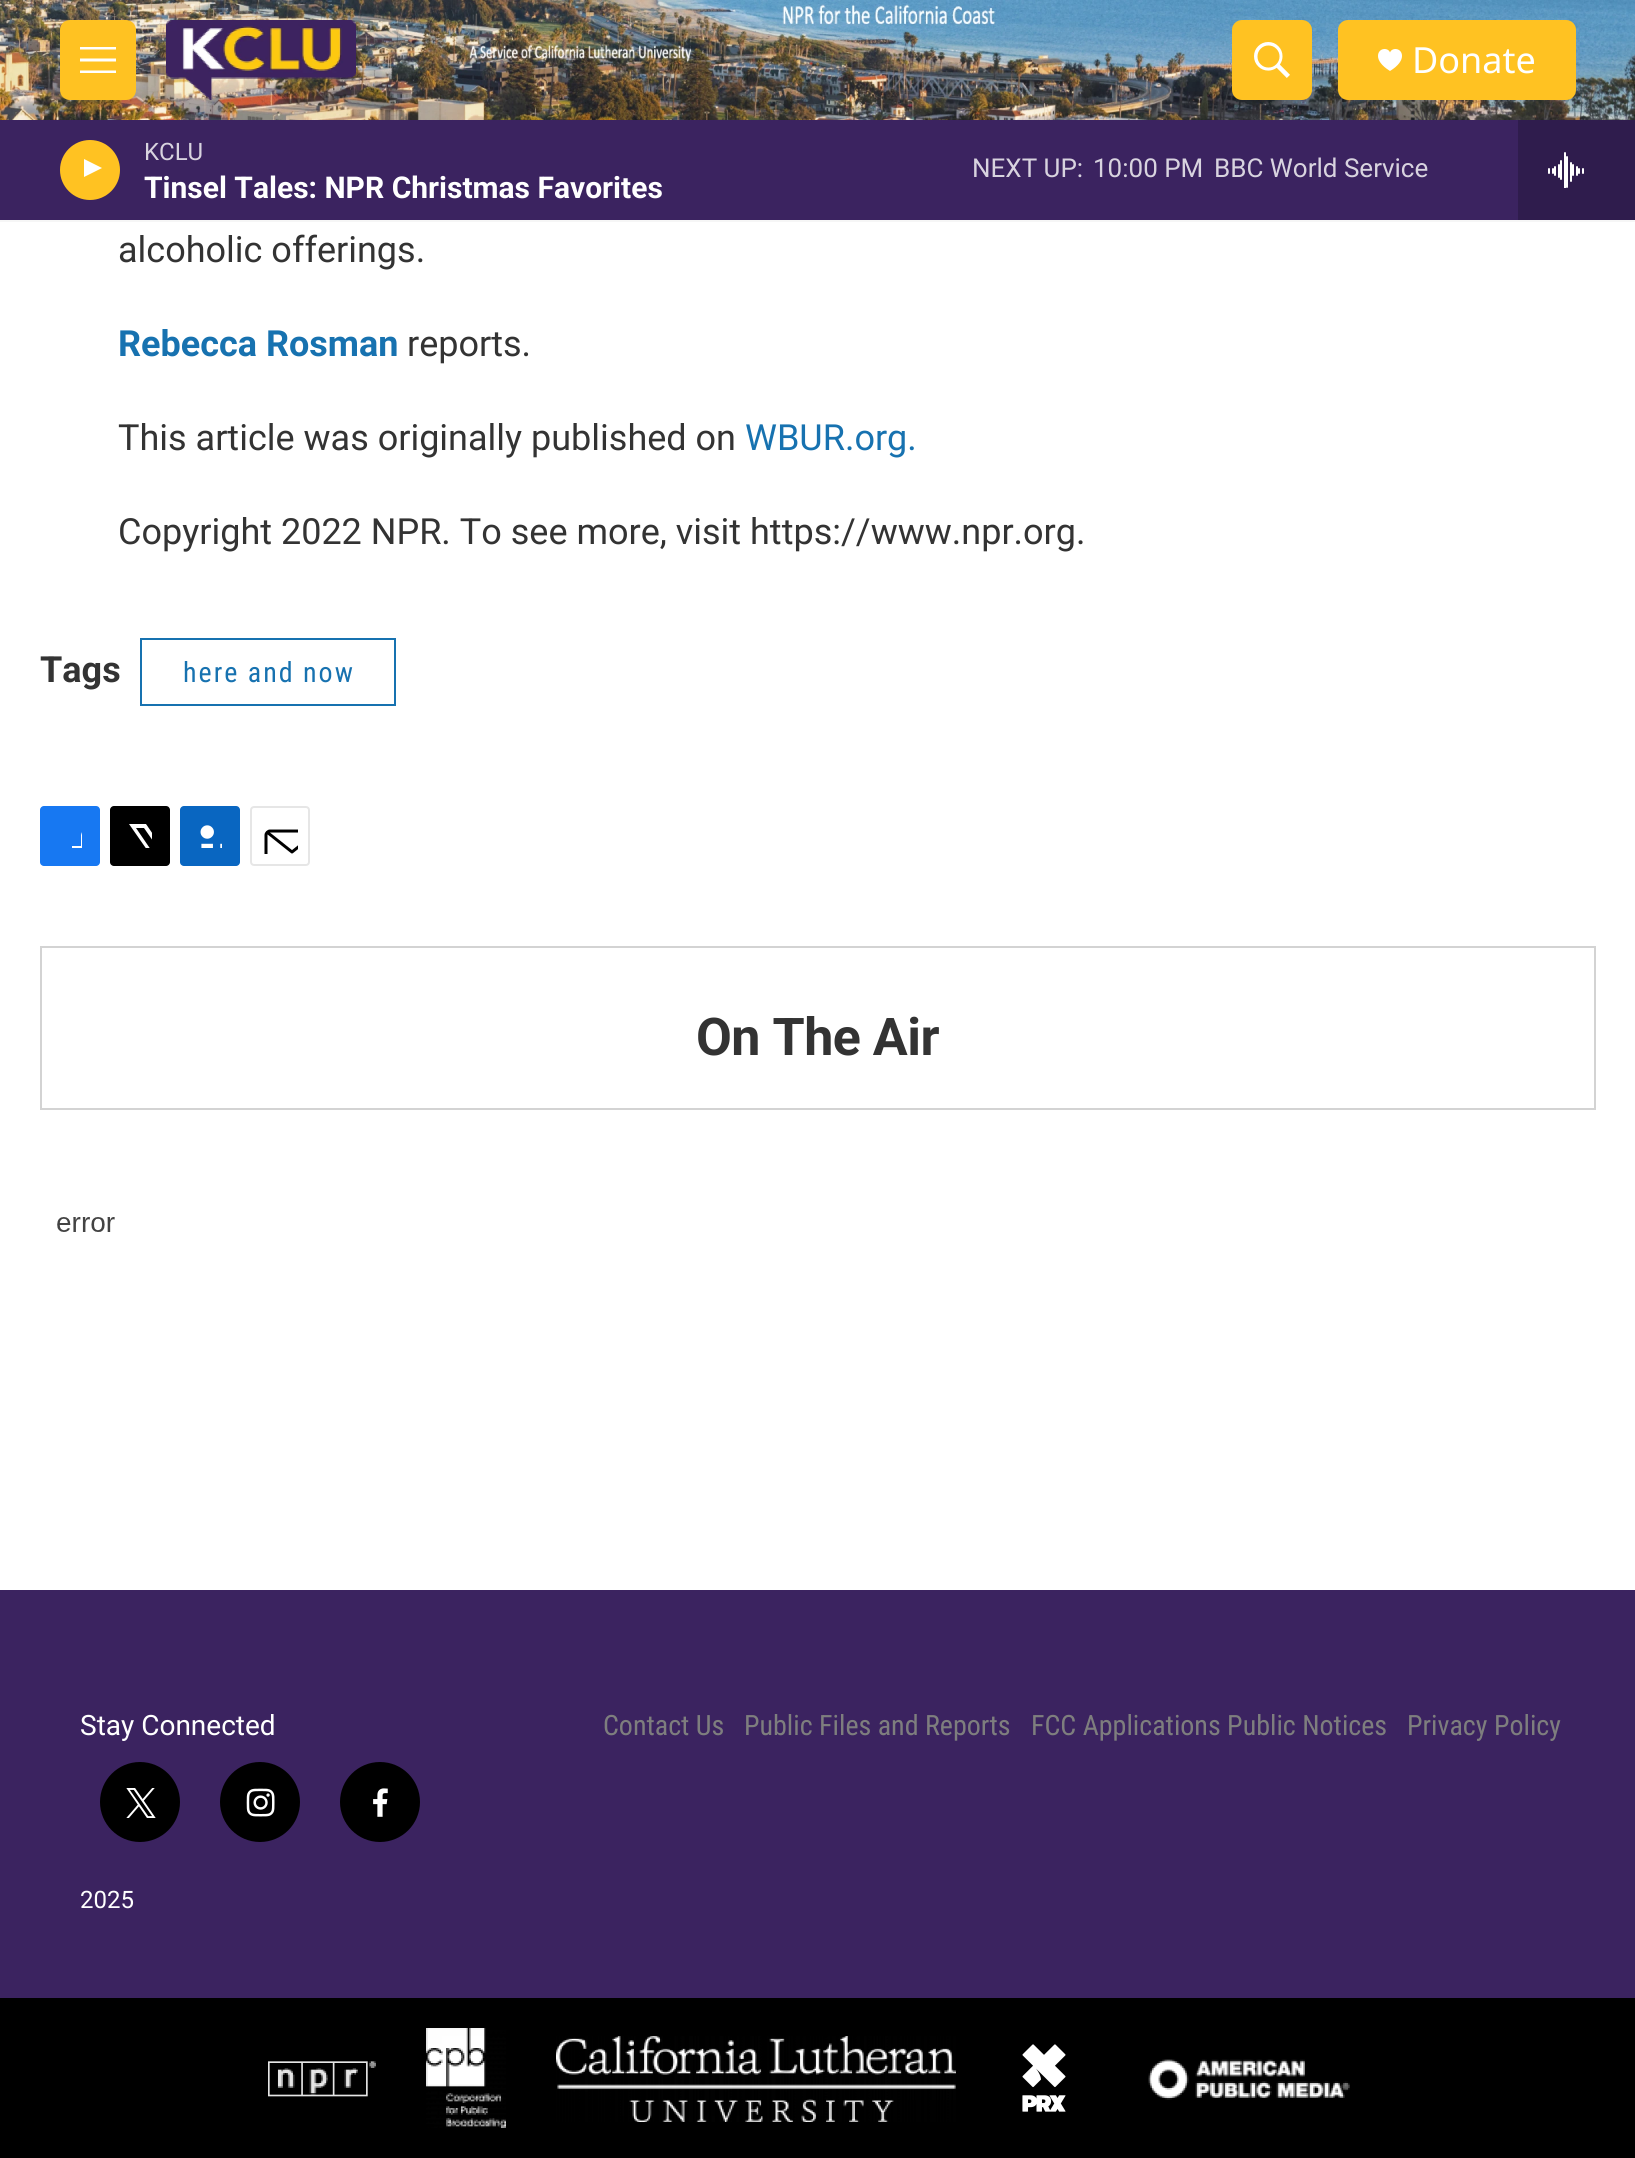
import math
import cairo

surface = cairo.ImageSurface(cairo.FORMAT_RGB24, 1635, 2158)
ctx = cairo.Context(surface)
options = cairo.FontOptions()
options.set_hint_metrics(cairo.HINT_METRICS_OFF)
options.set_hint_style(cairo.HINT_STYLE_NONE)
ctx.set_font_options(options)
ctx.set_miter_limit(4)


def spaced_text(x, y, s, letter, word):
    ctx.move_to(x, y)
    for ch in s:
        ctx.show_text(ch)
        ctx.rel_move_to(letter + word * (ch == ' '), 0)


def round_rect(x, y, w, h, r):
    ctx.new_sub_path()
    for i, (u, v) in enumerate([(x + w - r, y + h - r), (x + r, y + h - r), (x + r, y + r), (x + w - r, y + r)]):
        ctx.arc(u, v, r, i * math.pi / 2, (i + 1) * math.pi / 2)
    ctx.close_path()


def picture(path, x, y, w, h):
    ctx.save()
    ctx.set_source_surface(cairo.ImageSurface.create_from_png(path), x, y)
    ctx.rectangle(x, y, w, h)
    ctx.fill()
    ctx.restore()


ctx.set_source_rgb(1, 1, 1)
ctx.paint()
ctx.set_source_rgb(0.961, 0.961, 0.961)
ctx.rectangle(0, 220, 1635, 2)
ctx.fill()
picture("img1.png", 0, 0, 1635, 120)
ctx.set_source_rgb(1, 0.761, 0.133)
round_rect(60, 20, 76, 80, 10)
ctx.fill()
ctx.set_source_rgb(1, 1, 1)
ctx.set_fill_rule(cairo.FILL_RULE_EVEN_ODD)
ctx.new_path()
ctx.move_to(80, 61.5)
ctx.line_to(80, 58.5)
ctx.line_to(116, 58.5)
ctx.line_to(116, 61.5)
ctx.close_path()
ctx.move_to(80, 49.5)
ctx.line_to(80, 47)
ctx.line_to(116, 47)
ctx.line_to(116, 49.5)
ctx.close_path()
ctx.move_to(80, 73)
ctx.line_to(80, 70.5)
ctx.line_to(116, 70.5)
ctx.line_to(116, 73)
ctx.close_path()
ctx.fill()
picture("img2.png", 166, 20, 190, 80)
ctx.set_source_rgb(1, 0.761, 0.133)
round_rect(1232, 20, 80, 80, 10)
ctx.fill()
picture("img3.png", 1254, 42, 36, 36)
round_rect(1338, 20, 238, 80, 10)
ctx.fill()
picture("img4.png", 1378, 49, 24, 22)
ctx.select_font_face("Noto Sans")
ctx.set_font_size(36)
ctx.set_source_rgb(1, 1, 1)
ctx.move_to(1412, 73)
ctx.show_text("Donate")
ctx.set_source_rgb(0.231, 0.137, 0.376)
ctx.rectangle(0, 120, 1518, 100)
ctx.fill()
ctx.set_source_rgb(1, 0.761, 0.133)
ctx.arc(90, 170, 30, 0, 2 * math.pi)
ctx.fill()
ctx.save()
ctx.set_fill_rule(cairo.FILL_RULE_WINDING)
ctx.rectangle(84, 156, 23, 30)
ctx.clip()
ctx.set_source_rgb(1, 1, 1)
ctx.new_path()
ctx.move_to(83, 158.5)
ctx.line_to(102, 168)
ctx.line_to(83, 177.5)
ctx.close_path()
ctx.fill()
ctx.restore()
ctx.select_font_face("Roboto")
ctx.set_font_size(24)
ctx.set_source_rgb(0.847, 0.827, 0.875)
ctx.move_to(144, 160)
ctx.show_text("KCLU")
ctx.select_font_face("Roboto", cairo.FONT_SLANT_NORMAL, cairo.FONT_WEIGHT_BOLD)
ctx.set_font_size(30)
ctx.set_source_rgb(1, 1, 1)
ctx.move_to(144, 198)
ctx.show_text("Tinsel Tales: NPR Christmas Favorites")
ctx.select_font_face("Roboto")
ctx.set_font_size(26)
ctx.set_source_rgb(0.847, 0.827, 0.875)
ctx.move_to(972, 177)
ctx.show_text("NEXT UP:")
ctx.move_to(1093, 177)
ctx.show_text("10:00 PM")
ctx.move_to(1214, 177)
ctx.show_text("BBC World Service")
ctx.set_source_rgb(0.184, 0.11, 0.302)
ctx.rectangle(1518, 120, 117, 100)
ctx.fill()
picture("img5.png", 1548, 152, 36, 36)
ctx.set_font_size(36)
ctx.set_source_rgb(0.2, 0.2, 0.2)
ctx.move_to(118, 262)
ctx.show_text("alcoholic offerings.")
ctx.select_font_face("Roboto", cairo.FONT_SLANT_NORMAL, cairo.FONT_WEIGHT_BOLD)
ctx.set_source_rgb(0.09, 0.447, 0.69)
ctx.move_to(118, 356)
ctx.show_text("Rebecca Rosman")
ctx.select_font_face("Roboto")
ctx.set_source_rgb(0.2, 0.2, 0.2)
ctx.move_to(407, 356)
ctx.show_text("reports.")
ctx.move_to(118, 450)
ctx.show_text("This article was originally published on")
ctx.set_source_rgb(0.09, 0.447, 0.69)
ctx.move_to(745, 450)
ctx.show_text("WBUR.org.")
ctx.set_source_rgb(0.2, 0.2, 0.2)
ctx.move_to(118, 544)
ctx.show_text("Copyright 2022 NPR. To see more, visit https://www.npr.org.")
ctx.select_font_face("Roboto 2", cairo.FONT_SLANT_NORMAL, cairo.FONT_WEIGHT_BOLD)
ctx.move_to(40, 682)
ctx.show_text("Tags")
ctx.rectangle(141, 639, 254, 66)
ctx.set_source_rgb(0.09, 0.447, 0.69)
ctx.stroke()
ctx.select_font_face("Roboto Condensed")
ctx.set_font_size(28)
spaced_text(183, 682, "here and now", 2, 0)
ctx.set_source_rgb(0.09, 0.471, 0.949)
round_rect(40, 806, 60, 60, 4)
ctx.fill()
ctx.save()
ctx.set_fill_rule(cairo.FILL_RULE_WINDING)
ctx.rectangle(58, 824, 24, 24)
ctx.clip()
ctx.set_source_rgb(1, 1, 1)
ctx.new_path()
ctx.move_to(91, 866)
ctx.line_to(81, 866)
ctx.line_to(81, 856)
ctx.line_to(72, 856)
ctx.line_to(72, 846)
ctx.line_to(81, 846)
ctx.line_to(81, 835)
ctx.curve_to(83, 826, 92, 824, 100, 825)
ctx.line_to(100, 834)
ctx.curve_to(89, 834, 91, 837, 91, 846)
ctx.line_to(100, 846)
ctx.line_to(100, 851)
ctx.line_to(99, 856)
ctx.line_to(91, 856)
ctx.close_path()
ctx.fill()
ctx.restore()
ctx.set_source_rgb(0, 0, 0)
round_rect(110, 806, 60, 60, 4)
ctx.fill()
ctx.save()
ctx.set_fill_rule(cairo.FILL_RULE_WINDING)
ctx.rectangle(128, 824, 24, 24)
ctx.clip()
ctx.set_source_rgb(1, 1, 1)
ctx.new_path()
ctx.move_to(164, 849)
ctx.line_to(170, 858)
ctx.curve_to(170, 860, 171, 863, 169, 864)
ctx.line_to(144, 828)
ctx.line_to(136, 828)
ctx.line_to(162, 866)
ctx.line_to(157, 866)
ctx.line_to(154, 861)
ctx.line_to(150, 866)
ctx.line_to(144, 866)
ctx.line_to(152, 857)
ctx.line_to(129, 824)
ctx.line_to(146, 824)
ctx.line_to(161, 846)
ctx.line_to(170, 836)
ctx.line_to(170, 842)
ctx.close_path()
ctx.fill()
ctx.restore()
ctx.set_source_rgb(0.039, 0.4, 0.757)
round_rect(180, 806, 60, 60, 4)
ctx.fill()
picture("img6.png", 200, 825, 22, 23)
round_rect(251, 807, 58, 58, 3)
ctx.set_source_rgb(0.902, 0.902, 0.902)
ctx.stroke()
ctx.save()
ctx.set_fill_rule(cairo.FILL_RULE_WINDING)
ctx.rectangle(262, 818, 36, 36)
ctx.clip()
ctx.new_path()
ctx.move_to(318, 862)
ctx.curve_to(318, 864, 316, 865.5, 314, 865.5)
ctx.line_to(270, 865.5)
ctx.curve_to(268, 865.5, 266, 864, 266, 862)
ctx.line_to(266, 835)
ctx.curve_to(266, 833, 268, 831, 270, 831)
ctx.line_to(314, 831)
ctx.curve_to(316, 831, 318, 833, 318, 835)
ctx.close_path()
ctx.move_to(316.5, 832.5)
ctx.line_to(292, 852)
ctx.line_to(267.5, 832.5)
ctx.set_source_rgb(0, 0, 0)
ctx.set_line_width(3)
ctx.set_line_cap(cairo.LINE_CAP_ROUND)
ctx.set_line_join(cairo.LINE_JOIN_ROUND)
ctx.stroke()
ctx.restore()
ctx.rectangle(41, 947, 1554, 162)
ctx.set_source_rgb(0.827, 0.827, 0.827)
ctx.stroke()
ctx.select_font_face("Roboto 2", cairo.FONT_SLANT_NORMAL, cairo.FONT_WEIGHT_BOLD)
ctx.set_font_size(52)
ctx.set_source_rgb(0.2, 0.2, 0.2)
spaced_text(696, 1055, "On The Air", -0.5, 0)
picture("img7.png", 57, 1217, 58, 15)
ctx.set_source_rgb(0.231, 0.137, 0.376)
ctx.rectangle(0, 1590, 1635, 408)
ctx.fill()
ctx.select_font_face("Roboto")
ctx.set_font_size(28)
ctx.set_source_rgb(1, 1, 1)
ctx.move_to(80, 1735)
ctx.show_text("Stay Connected")
ctx.set_source_rgb(0, 0, 0)
ctx.new_path()
ctx.arc(140, 1802, 40, 0, 2 * math.pi)
ctx.fill()
picture("img8.png", 126, 1788, 30, 30)
ctx.arc(260, 1802, 40, 0, 2 * math.pi)
ctx.fill()
picture("img9.png", 246, 1788, 29, 29)
ctx.arc(380, 1802, 40, 0, 2 * math.pi)
ctx.fill()
picture("img10.png", 373, 1788, 15, 29)
ctx.set_font_size(24)
ctx.set_source_rgb(1, 1, 1)
ctx.move_to(80, 1908)
ctx.show_text("2025")
ctx.select_font_face("Roboto Condensed")
ctx.set_font_size(28)
ctx.set_source_rgb(0.494, 0.494, 0.494)
ctx.move_to(603, 1735)
ctx.show_text("Contact Us")
ctx.move_to(744, 1735)
ctx.show_text("Public Files and Reports")
ctx.move_to(1031, 1735)
ctx.show_text("FCC Applications Public Notices")
ctx.move_to(1407, 1735)
ctx.show_text("Privacy Policy")
ctx.set_source_rgb(0, 0, 0)
ctx.rectangle(0, 1998, 1635, 160)
ctx.fill()
picture("img11.png", 268, 2061, 108, 36)
picture("img12.png", 426, 2028, 80, 100)
picture("img13.png", 556, 2036, 400, 86)
picture("img14.png", 1022, 2044, 44, 68)
picture("img15.png", 1148, 2059, 202, 41)
surface.write_to_png("page.png")
